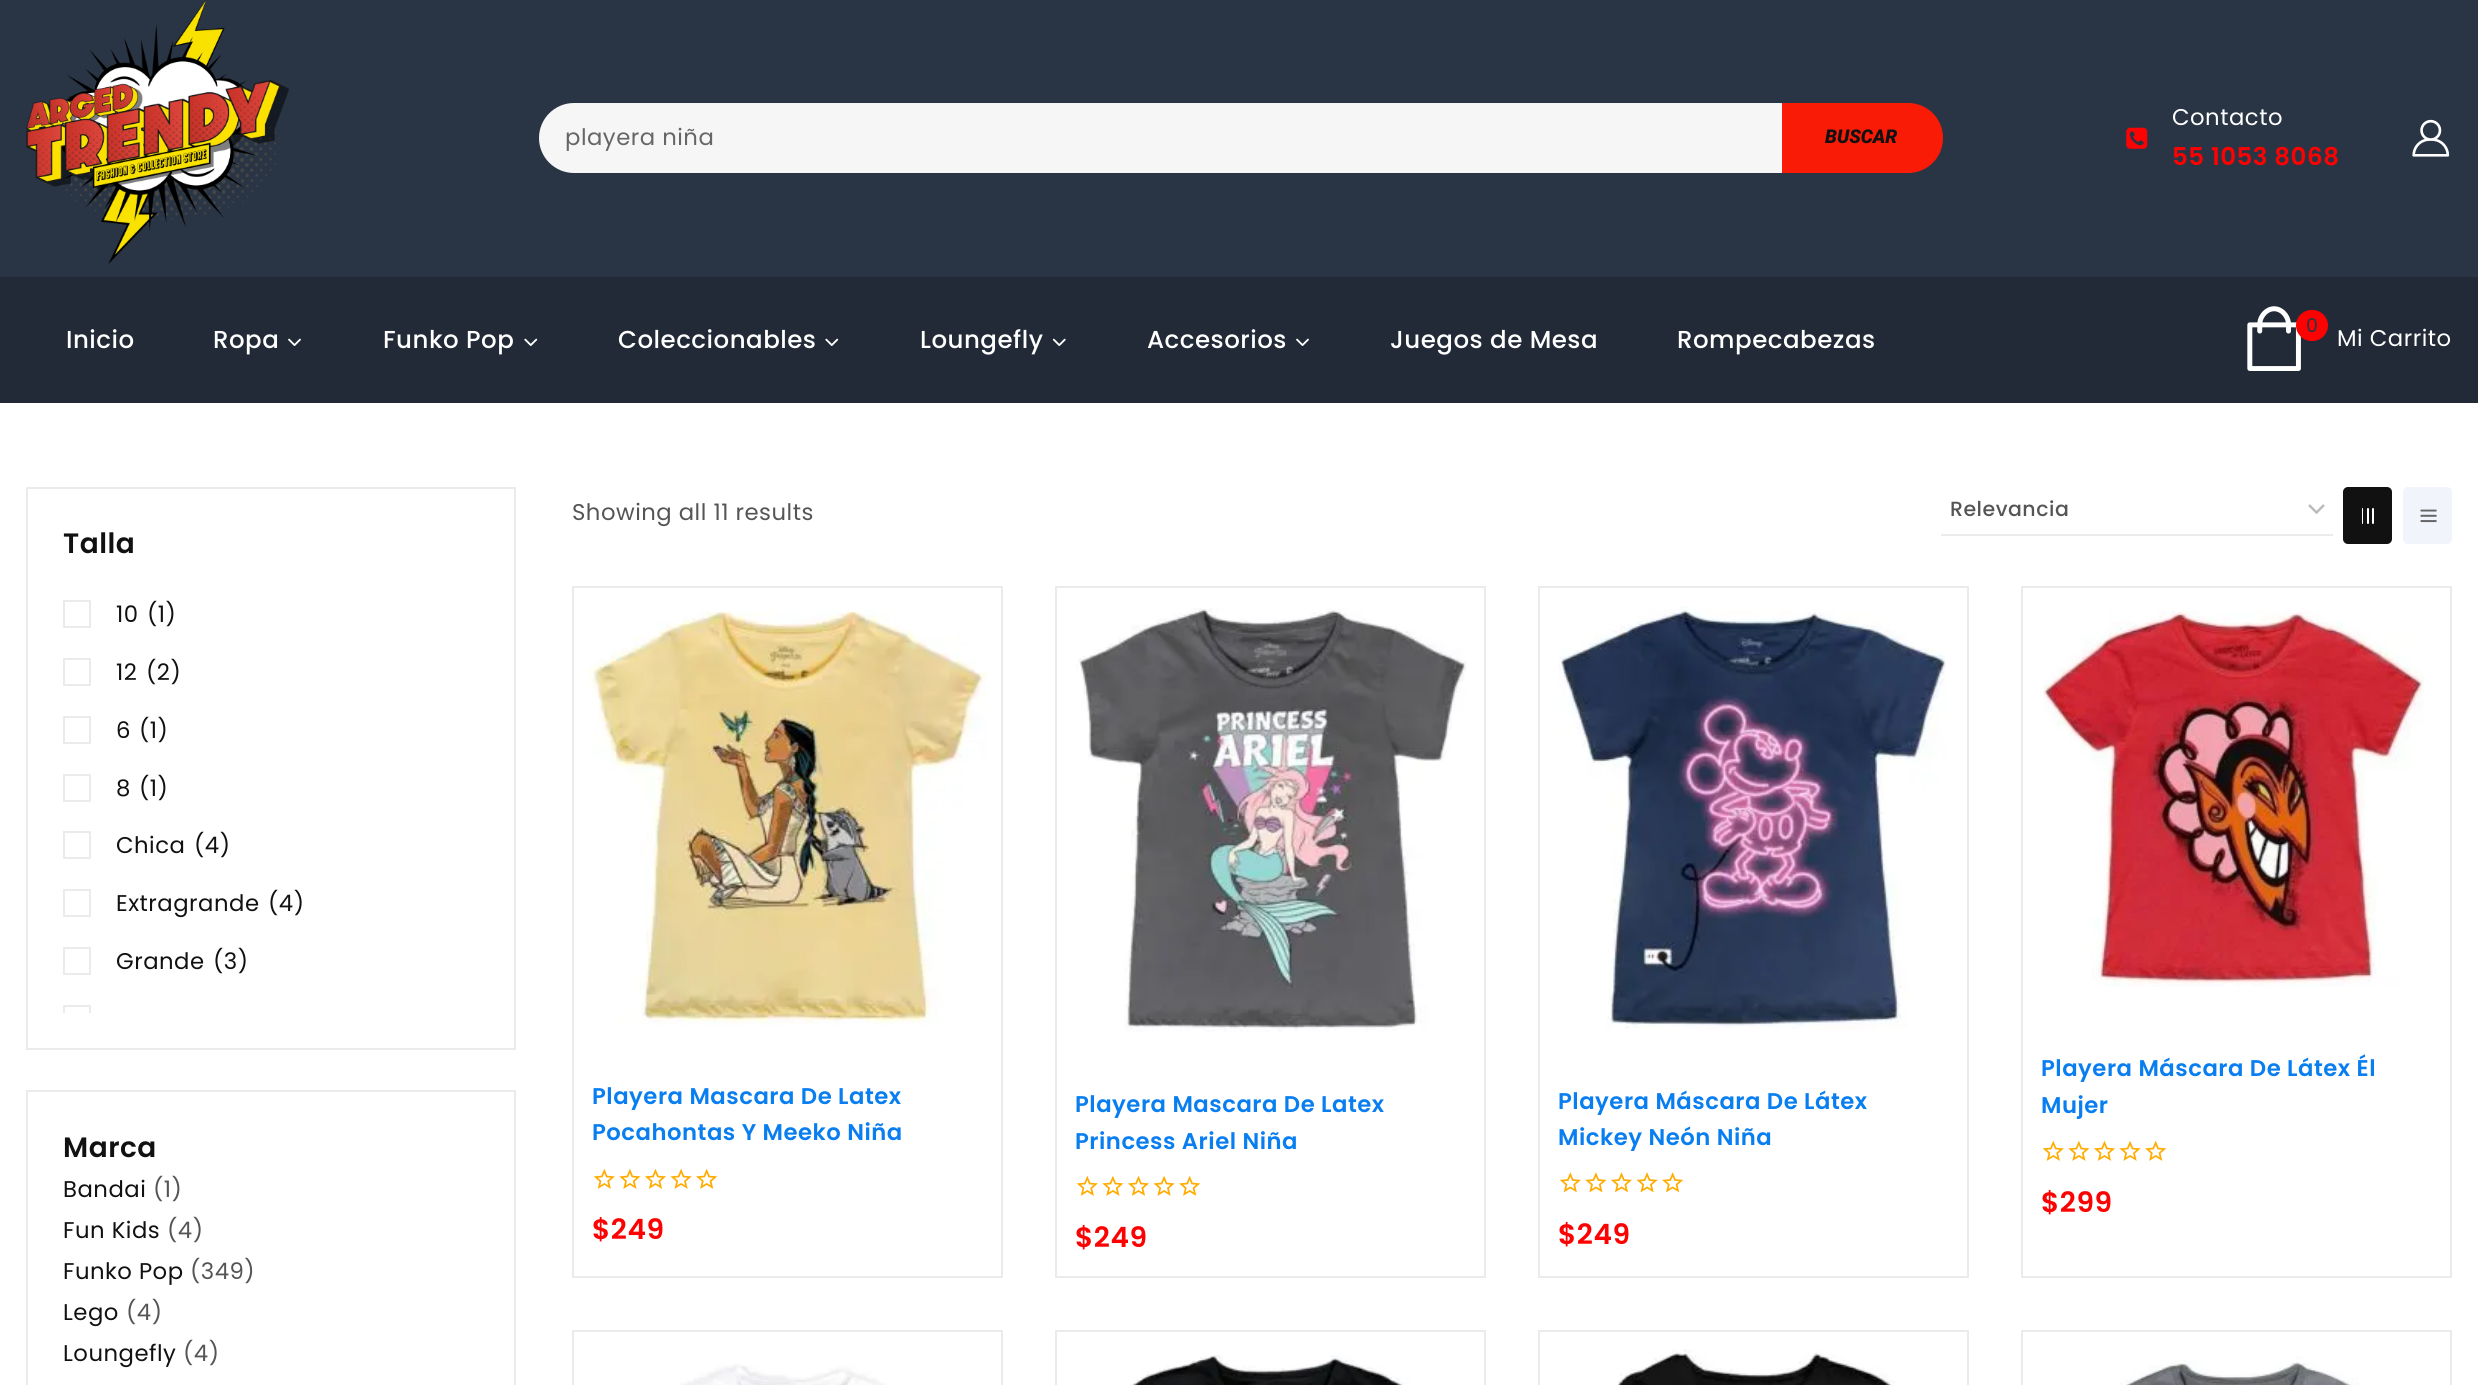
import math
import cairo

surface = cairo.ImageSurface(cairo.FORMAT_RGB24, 2478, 1385)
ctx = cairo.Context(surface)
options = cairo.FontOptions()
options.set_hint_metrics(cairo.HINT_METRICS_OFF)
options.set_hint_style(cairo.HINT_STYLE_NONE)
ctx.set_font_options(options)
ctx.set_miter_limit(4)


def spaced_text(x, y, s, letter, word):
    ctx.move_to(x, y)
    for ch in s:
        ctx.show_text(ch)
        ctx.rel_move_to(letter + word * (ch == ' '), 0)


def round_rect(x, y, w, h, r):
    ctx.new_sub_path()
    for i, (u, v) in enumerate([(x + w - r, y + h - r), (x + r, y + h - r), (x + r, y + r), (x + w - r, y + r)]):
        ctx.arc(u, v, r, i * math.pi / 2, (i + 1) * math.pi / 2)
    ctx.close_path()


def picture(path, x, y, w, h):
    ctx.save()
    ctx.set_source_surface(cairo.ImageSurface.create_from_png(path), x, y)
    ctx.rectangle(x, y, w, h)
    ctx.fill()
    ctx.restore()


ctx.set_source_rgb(1, 1, 1)
ctx.paint()
ctx.set_source_rgb(0.161, 0.208, 0.267)
ctx.rectangle(0, 0, 2478, 277)
ctx.fill()
picture("img1.png", 26, 0, 263, 264)
ctx.set_source_rgb(0.961, 0.961, 0.961)
round_rect(539, 103, 1400, 70, 35)
ctx.fill()
ctx.select_font_face("Poppins")
ctx.set_font_size(22.75)
ctx.set_source_rgb(0.4, 0.4, 0.4)
spaced_text(565, 145, "playera niña", 0.5, 0)
ctx.set_source_rgb(0.976, 0.106, 0.02)
ctx.new_path()
ctx.move_to(1782, 103)
ctx.line_to(1908, 103)
ctx.curve_to(1927.5, 103, 1943, 118.5, 1943, 138)
ctx.curve_to(1943, 157.5, 1927.5, 173, 1908, 173)
ctx.line_to(1782, 173)
ctx.close_path()
ctx.fill()
ctx.select_font_face("Roboto Black", cairo.FONT_SLANT_ITALIC)
ctx.set_font_size(19)
ctx.set_source_rgb(0.067, 0.067, 0.067)
ctx.move_to(1825, 143)
ctx.show_text("BUSCAR")
picture("img2.png", 2126, 127, 22, 22)
ctx.select_font_face("Poppins")
ctx.set_font_size(22.75)
ctx.set_source_rgb(1, 1, 1)
spaced_text(2172, 125, "Contacto", 0.5, 0)
ctx.select_font_face("Poppins SemiBold")
ctx.set_font_size(24.5)
ctx.set_source_rgb(0.988, 0.008, 0.008)
spaced_text(2172, 165, "55 1053 8068", 0.5, 0)
picture("img3.png", 2412, 119, 38, 38)
ctx.set_source_rgb(0.129, 0.165, 0.212)
ctx.rectangle(0, 277, 2478, 126)
ctx.fill()
ctx.select_font_face("Poppins Medium")
ctx.set_source_rgb(1, 1, 1)
spaced_text(66, 348, "Inicio", 0.5, 0)
spaced_text(213, 348, "Ropa", 0.5, 0)
picture("img4.png", 288, 338, 13, 8)
spaced_text(383, 348, "Funko Pop", 0.5, 0)
picture("img5.png", 524, 338, 14, 8)
spaced_text(618, 348, "Coleccionables", 0.5, 0)
picture("img5.png", 825, 338, 14, 8)
spaced_text(920, 348, "Loungefly", 0.5, 0)
picture("img6.png", 1052, 338, 14, 8)
spaced_text(1147, 348, "Accesorios", 0.5, 0)
picture("img4.png", 1296, 338, 13, 8)
spaced_text(1390, 348, "Juegos de Mesa", 0.5, 0)
spaced_text(1677, 348, "Rompecabezas", 0.5, 0)
picture("img7.png", 2247, 306, 54, 65)
ctx.set_source_rgb(0.988, 0.008, 0.008)
round_rect(2296, 310, 32, 31, 15.5)
ctx.fill()
ctx.select_font_face("Poppins")
ctx.set_font_size(19)
ctx.set_source_rgb(0.161, 0.208, 0.267)
ctx.move_to(2306, 332)
ctx.show_text("0")
ctx.set_font_size(22.75)
ctx.set_source_rgb(1, 1, 1)
spaced_text(2337, 346, "Mi Carrito", 0.5, 0)
ctx.rectangle(27, 488, 488, 561)
ctx.set_source_rgb(0.918, 0.918, 0.918)
ctx.stroke()
ctx.select_font_face("Poppins SemiBold")
ctx.set_font_size(28)
ctx.set_source_rgb(0.067, 0.067, 0.067)
spaced_text(63, 553, "Talla", 0.5, 0)
ctx.rectangle(64, 601, 26, 26)
ctx.set_source_rgb(0.918, 0.918, 0.918)
ctx.stroke()
ctx.select_font_face("Poppins")
ctx.set_font_size(22.75)
ctx.set_source_rgb(0.067, 0.067, 0.067)
spaced_text(116, 622, "10", 0.5, 0)
spaced_text(147, 622, "(1)", 0.5, 0)
ctx.rectangle(64, 659, 26, 26)
ctx.set_source_rgb(0.918, 0.918, 0.918)
ctx.stroke()
ctx.set_source_rgb(0.067, 0.067, 0.067)
spaced_text(116, 680, "12", 0.5, 0)
spaced_text(146, 680, "(2)", 0.5, 0)
ctx.rectangle(64, 717, 26, 26)
ctx.set_source_rgb(0.918, 0.918, 0.918)
ctx.stroke()
ctx.set_source_rgb(0.067, 0.067, 0.067)
spaced_text(116, 738, "6", 0.5, 0)
spaced_text(139, 738, "(1)", 0.5, 0)
ctx.rectangle(64, 775, 26, 26)
ctx.set_source_rgb(0.918, 0.918, 0.918)
ctx.stroke()
ctx.set_source_rgb(0.067, 0.067, 0.067)
spaced_text(116, 796, "8", 0.5, 0)
spaced_text(139, 796, "(1)", 0.5, 0)
ctx.rectangle(64, 832, 26, 26)
ctx.set_source_rgb(0.918, 0.918, 0.918)
ctx.stroke()
ctx.set_source_rgb(0.067, 0.067, 0.067)
spaced_text(116, 853, "Chica", 0.5, 0)
spaced_text(194, 853, "(4)", 0.5, 0)
ctx.rectangle(64, 890, 26, 26)
ctx.set_source_rgb(0.918, 0.918, 0.918)
ctx.stroke()
ctx.set_source_rgb(0.067, 0.067, 0.067)
spaced_text(116, 911, "Extragrande", 0.5, 0)
spaced_text(268, 911, "(4)", 0.5, 0)
ctx.rectangle(64, 948, 26, 26)
ctx.set_source_rgb(0.918, 0.918, 0.918)
ctx.stroke()
ctx.set_source_rgb(0.067, 0.067, 0.067)
spaced_text(116, 969, "Grande", 0.5, 0)
spaced_text(213, 969, "(3)", 0.5, 0)
ctx.save()
ctx.rectangle(63, 593, 417, 420)
ctx.clip()
ctx.rectangle(64, 1006, 26, 26)
ctx.set_source_rgb(0.918, 0.918, 0.918)
ctx.stroke()
ctx.restore()
ctx.rectangle(27, 1091, 488, 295)
ctx.set_source_rgb(0.918, 0.918, 0.918)
ctx.stroke()
ctx.select_font_face("Poppins SemiBold")
ctx.set_font_size(28)
ctx.set_source_rgb(0.067, 0.067, 0.067)
spaced_text(63, 1157, "Marca", 0.5, 0)
ctx.select_font_face("Poppins")
ctx.set_font_size(22.75)
spaced_text(63, 1197, "Bandai", 0.5, 0)
ctx.set_source_rgb(0.333, 0.333, 0.333)
spaced_text(153, 1197, "(1)", 0.5, 0)
ctx.set_source_rgb(0.067, 0.067, 0.067)
spaced_text(63, 1238, "Fun Kids", 0.5, 0)
ctx.set_source_rgb(0.333, 0.333, 0.333)
spaced_text(167, 1238, "(4)", 0.5, 0)
ctx.set_source_rgb(0.067, 0.067, 0.067)
spaced_text(63, 1279, "Funko Pop", 0.5, 0)
ctx.set_source_rgb(0.333, 0.333, 0.333)
spaced_text(190, 1279, "(349)", 0.5, 0)
ctx.set_source_rgb(0.067, 0.067, 0.067)
spaced_text(63, 1320, "Lego", 0.5, 0)
ctx.set_source_rgb(0.333, 0.333, 0.333)
spaced_text(126, 1320, "(4)", 0.5, 0)
ctx.set_source_rgb(0.067, 0.067, 0.067)
spaced_text(63, 1361, "Loungefly", 0.5, 0)
ctx.set_source_rgb(0.333, 0.333, 0.333)
spaced_text(183, 1361, "(4)", 0.5, 0)
spaced_text(572, 520, "Showing all 11 results", 0.5, 0)
ctx.new_path()
ctx.move_to(2309, 505)
ctx.line_to(2316.5, 512.5)
ctx.line_to(2324, 505)
ctx.set_source_rgb(0.733, 0.733, 0.733)
ctx.set_line_width(2.5)
ctx.stroke()
ctx.set_source_rgb(0.918, 0.918, 0.918)
ctx.rectangle(1941, 534, 392, 2)
ctx.fill()
ctx.select_font_face("Poppins Medium")
ctx.set_font_size(20.5)
ctx.set_source_rgb(0.333, 0.333, 0.333)
spaced_text(1950, 516, "Relevancia", 0.5, 0)
ctx.set_source_rgb(0.067, 0.067, 0.067)
round_rect(2343, 487, 49, 57, 5)
ctx.fill()
ctx.set_source_rgb(1, 1, 1)
round_rect(2362, 508, 1, 16, 0.5)
ctx.fill()
round_rect(2367, 508, 2, 16, 1)
ctx.fill()
round_rect(2372, 508, 2, 16, 1)
ctx.fill()
ctx.set_source_rgb(0.945, 0.957, 0.98)
round_rect(2403, 487, 49, 57, 5)
ctx.fill()
picture("img8.png", 2420, 509, 17, 14)
ctx.rectangle(573, 587, 429, 690)
ctx.set_source_rgb(0.918, 0.918, 0.918)
ctx.set_line_width(2)
ctx.stroke()
picture("img9.png", 587, 610, 400, 415)
ctx.select_font_face("Poppins SemiBold")
ctx.set_font_size(22.75)
ctx.set_source_rgb(0.039, 0.494, 0.941)
spaced_text(592, 1104, "Playera Mascara De Latex", 0.5, 0)
spaced_text(592, 1140, "Pocahontas Y Meeko Niña", 0.5, 0)
picture("img10.png", 593, 1168, 125, 21)
ctx.set_font_size(28)
ctx.set_source_rgb(0.988, 0.008, 0.008)
spaced_text(592, 1239, "$249", 0.5, 0)
ctx.rectangle(1056, 587, 429, 690)
ctx.set_source_rgb(0.918, 0.918, 0.918)
ctx.stroke()
picture("img11.png", 1076, 608, 391, 424)
ctx.set_font_size(22.75)
ctx.set_source_rgb(0.039, 0.494, 0.941)
spaced_text(1075, 1112, "Playera Mascara De Latex", 0.5, 0)
spaced_text(1075, 1149, "Princess Ariel Niña", 0.5, 0)
picture("img10.png", 1076, 1175, 125, 21)
ctx.set_font_size(28)
ctx.set_source_rgb(0.988, 0.008, 0.008)
spaced_text(1075, 1247, "$249", 0.5, 0)
ctx.rectangle(1539, 587, 429, 690)
ctx.set_source_rgb(0.918, 0.918, 0.918)
ctx.stroke()
picture("img12.png", 1558, 606, 388, 424)
ctx.set_font_size(22.75)
ctx.set_source_rgb(0.039, 0.494, 0.941)
spaced_text(1558, 1109, "Playera Máscara De Látex", 0.5, 0)
spaced_text(1558, 1145, "Mickey Neón Niña", 0.5, 0)
picture("img13.png", 1559, 1172, 125, 21)
ctx.set_font_size(28)
ctx.set_source_rgb(0.988, 0.008, 0.008)
spaced_text(1558, 1244, "$249", 0.5, 0)
ctx.rectangle(2022, 587, 429, 690)
ctx.set_source_rgb(0.918, 0.918, 0.918)
ctx.stroke()
picture("img14.png", 2043, 610, 381, 377)
ctx.set_font_size(22.75)
ctx.set_source_rgb(0.039, 0.494, 0.941)
spaced_text(2041, 1076, "Playera Máscara De Látex Él", 0.5, 0)
spaced_text(2041, 1113, "Mujer", 0.5, 0)
picture("img10.png", 2042, 1140, 125, 21)
ctx.set_font_size(28)
ctx.set_source_rgb(0.988, 0.008, 0.008)
spaced_text(2041, 1212, "$299", 0.5, 0)
ctx.rectangle(573, 1331, 429, 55)
ctx.set_source_rgb(0.918, 0.918, 0.918)
ctx.stroke()
picture("img15.png", 680, 1364, 206, 21)
ctx.rectangle(1056, 1331, 429, 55)
ctx.stroke()
picture("img16.png", 1130, 1355, 280, 30)
ctx.rectangle(1539, 1331, 429, 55)
ctx.stroke()
picture("img17.png", 1618, 1349, 277, 36)
ctx.rectangle(2022, 1331, 429, 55)
ctx.stroke()
picture("img18.png", 2120, 1356, 239, 29)
surface.write_to_png("page.png")
